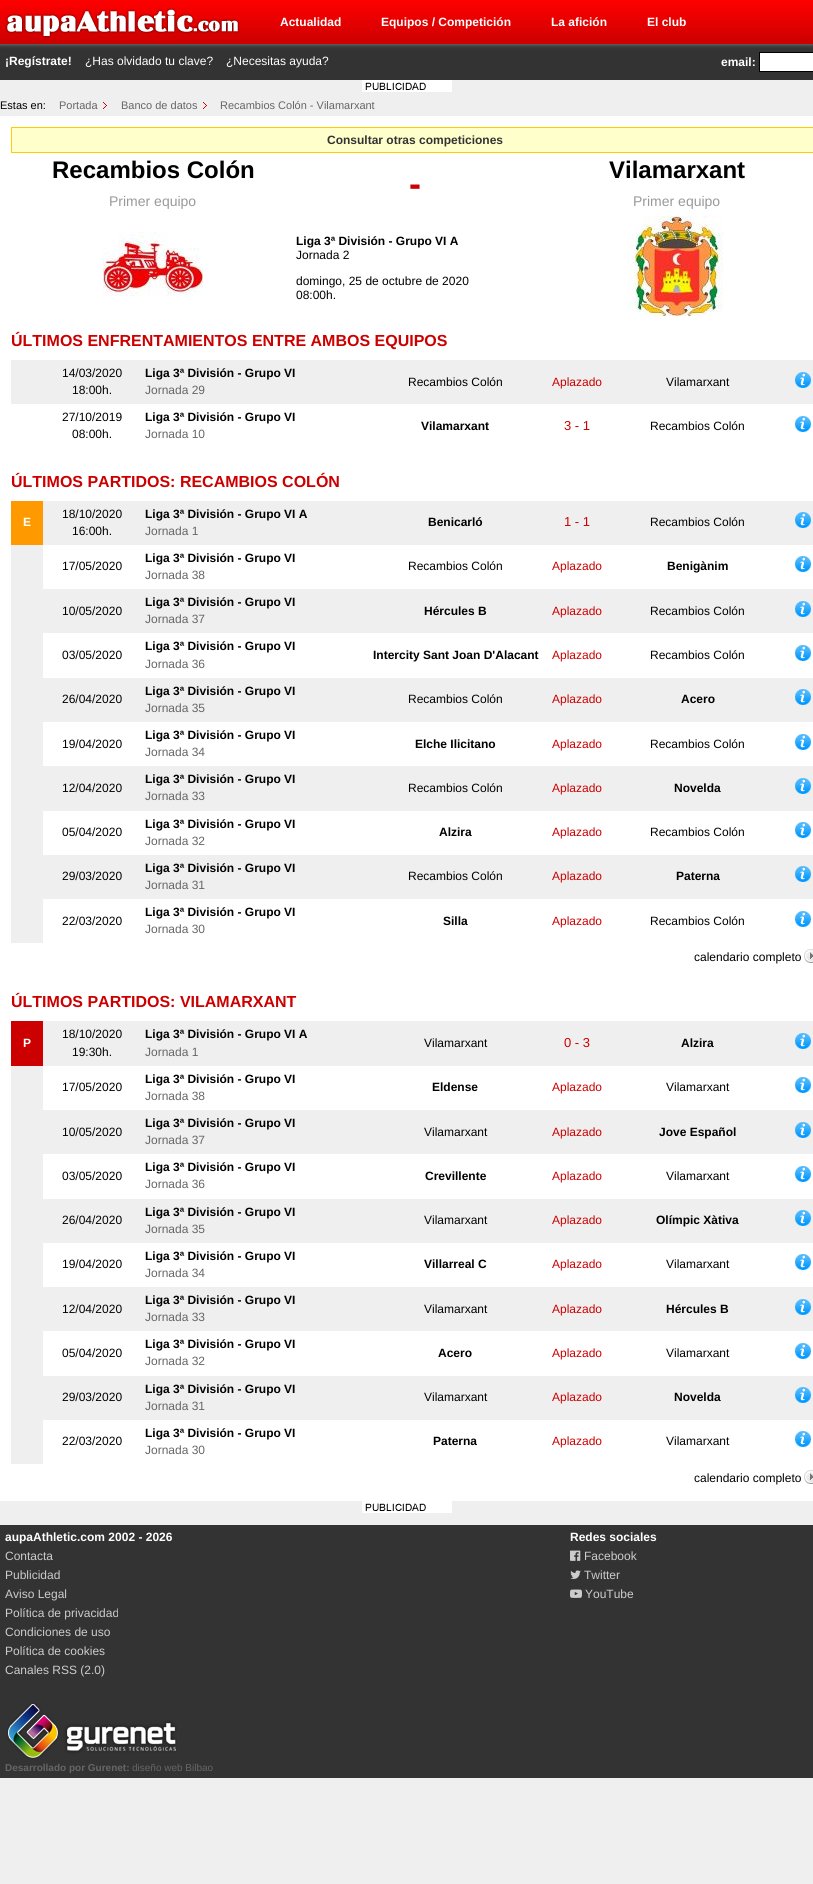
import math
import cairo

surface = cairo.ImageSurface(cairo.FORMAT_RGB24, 813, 1884)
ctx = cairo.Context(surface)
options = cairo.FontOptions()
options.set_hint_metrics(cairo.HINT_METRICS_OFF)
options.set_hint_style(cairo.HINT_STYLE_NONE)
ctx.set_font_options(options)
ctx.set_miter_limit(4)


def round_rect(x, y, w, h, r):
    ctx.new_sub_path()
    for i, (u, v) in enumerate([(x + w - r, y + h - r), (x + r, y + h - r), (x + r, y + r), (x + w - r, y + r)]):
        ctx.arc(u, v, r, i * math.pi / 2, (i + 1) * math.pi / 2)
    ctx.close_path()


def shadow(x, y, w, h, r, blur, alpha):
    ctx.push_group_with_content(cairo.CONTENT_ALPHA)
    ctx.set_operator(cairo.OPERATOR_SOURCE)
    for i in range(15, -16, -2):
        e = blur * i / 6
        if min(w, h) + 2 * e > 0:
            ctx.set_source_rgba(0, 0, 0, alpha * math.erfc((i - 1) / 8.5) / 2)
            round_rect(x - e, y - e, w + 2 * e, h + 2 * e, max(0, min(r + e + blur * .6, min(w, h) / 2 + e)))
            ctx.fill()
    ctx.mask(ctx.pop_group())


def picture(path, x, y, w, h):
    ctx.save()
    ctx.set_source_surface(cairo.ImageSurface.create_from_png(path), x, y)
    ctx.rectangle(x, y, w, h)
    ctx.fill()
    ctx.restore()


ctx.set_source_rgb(0.937, 0.937, 0.937)
ctx.paint()
ctx.set_source_rgb(0.2, 0.2, 0.2)
ctx.rectangle(0, 44, 813, 36)
ctx.fill()
ctx.set_source_rgb(1, 1, 1)
ctx.rectangle(759.5, 52.5, 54, 19)
ctx.fill_preserve()
ctx.set_source_rgb(0, 0, 0)
ctx.set_line_width(1)
ctx.stroke()
ctx.set_source_rgb(0.533, 0.533, 0.533)
shadow(0, 0, 813, 44, 0, 2.5, 1)
gradient = cairo.LinearGradient(407, 0, 407, 44)
gradient.add_color_stop_rgba(0, 1, 0, 0, 1)
gradient.add_color_stop_rgba(1, 0.8, 0, 0, 1)
ctx.set_source(gradient)
ctx.rectangle(0, 0, 813, 44)
ctx.fill()
picture("img1.png", 5, 8, 235, 30)
ctx.select_font_face("Liberation Sans", cairo.FONT_SLANT_NORMAL, cairo.FONT_WEIGHT_BOLD)
ctx.set_font_size(12)
ctx.set_source_rgb(1, 1, 1)
ctx.move_to(280, 26)
ctx.show_text("Actualidad")
ctx.move_to(381, 26)
ctx.show_text("Equipos / Competición")
ctx.move_to(551, 26)
ctx.show_text("La afición")
ctx.move_to(647, 26)
ctx.show_text("El club")
ctx.move_to(5, 65)
ctx.show_text("¡Regístrate!")
ctx.select_font_face("Liberation Sans")
ctx.move_to(85, 65)
ctx.show_text("¿Has olvidado tu clave?")
ctx.move_to(226, 65)
ctx.show_text("¿Necesitas ayuda?")
ctx.select_font_face("Liberation Sans", cairo.FONT_SLANT_NORMAL, cairo.FONT_WEIGHT_BOLD)
ctx.move_to(721, 66)
ctx.show_text("email:")
picture("img2.png", 362, 80, 90, 12)
ctx.select_font_face("Liberation Sans")
ctx.set_font_size(11)
ctx.set_source_rgb(0, 0, 0)
ctx.move_to(0, 109)
ctx.show_text("Estas en:")
ctx.set_source_rgb(0.4, 0.4, 0.4)
ctx.move_to(59, 109)
ctx.show_text("Portada")
picture("img3.png", 103, 102, 4, 7)
ctx.move_to(121, 109)
ctx.show_text("Banco de datos")
picture("img3.png", 203, 102, 4, 7)
ctx.move_to(220, 109)
ctx.show_text("Recambios Colón - Vilamarxant")
ctx.set_source_rgb(1, 1, 1)
ctx.rectangle(0, 116, 813, 1385)
ctx.fill()
ctx.set_source_rgb(1, 0.8, 0)
ctx.rectangle(11, 127, 802, 26)
ctx.fill()
ctx.set_source_rgb(1, 1, 0.8)
ctx.rectangle(12, 128, 801, 24)
ctx.fill()
ctx.select_font_face("Liberation Sans", cairo.FONT_SLANT_NORMAL, cairo.FONT_WEIGHT_BOLD)
ctx.set_font_size(12)
ctx.set_source_rgb(0.2, 0.2, 0.2)
ctx.move_to(327, 144)
ctx.show_text("Consultar otras competiciones")
ctx.set_font_size(24)
ctx.set_source_rgb(0, 0, 0)
ctx.move_to(52, 178)
ctx.show_text("Recambios Colón")
ctx.select_font_face("Liberation Sans")
ctx.set_font_size(14)
ctx.set_source_rgb(0.6, 0.6, 0.6)
ctx.move_to(109, 206)
ctx.show_text("Primer equipo")
ctx.select_font_face("Liberation Sans", cairo.FONT_SLANT_NORMAL, cairo.FONT_WEIGHT_BOLD)
ctx.set_font_size(36)
ctx.set_source_rgb(0.8, 0, 0)
ctx.move_to(409, 196)
ctx.show_text("-")
ctx.set_font_size(24)
ctx.set_source_rgb(0, 0, 0)
ctx.move_to(609, 178)
ctx.show_text("Vilamarxant")
ctx.select_font_face("Liberation Sans")
ctx.set_font_size(14)
ctx.set_source_rgb(0.6, 0.6, 0.6)
ctx.move_to(633, 206)
ctx.show_text("Primer equipo")
picture("img4.png", 103, 232, 100, 65)
ctx.select_font_face("Liberation Sans", cairo.FONT_SLANT_NORMAL, cairo.FONT_WEIGHT_BOLD)
ctx.set_font_size(12)
ctx.set_source_rgb(0, 0, 0)
ctx.move_to(296, 245)
ctx.show_text("Liga 3ª División - Grupo VI A")
ctx.select_font_face("Liberation Sans")
ctx.move_to(296, 259)
ctx.show_text("Jornada 2")
ctx.move_to(296, 285)
ctx.show_text("domingo, 25 de octubre de 2020")
ctx.move_to(296, 299)
ctx.show_text("08:00h.")
picture("img5.png", 627, 216, 97, 100)
ctx.select_font_face("Liberation Sans", cairo.FONT_SLANT_NORMAL, cairo.FONT_WEIGHT_BOLD)
ctx.set_font_size(16)
ctx.set_source_rgb(0.8, 0, 0)
ctx.move_to(11, 346)
ctx.show_text("ÚLTIMOS ENFRENTAMIENTOS ENTRE AMBOS EQUIPOS")
ctx.set_source_rgb(0.937, 0.937, 0.937)
ctx.rectangle(11, 360, 802, 44)
ctx.fill()
ctx.select_font_face("Liberation Sans")
ctx.set_font_size(12)
ctx.set_source_rgb(0, 0, 0)
ctx.move_to(62, 377)
ctx.show_text("14/03/2020")
ctx.move_to(72, 394)
ctx.show_text("18:00h.")
ctx.select_font_face("Liberation Sans", cairo.FONT_SLANT_NORMAL, cairo.FONT_WEIGHT_BOLD)
ctx.move_to(145, 377)
ctx.show_text("Liga 3ª División - Grupo VI")
ctx.select_font_face("Liberation Sans")
ctx.set_source_rgb(0.4, 0.4, 0.4)
ctx.move_to(145, 394)
ctx.show_text("Jornada 29")
ctx.set_source_rgb(0, 0, 0)
ctx.move_to(408, 386)
ctx.show_text("Recambios Colón")
ctx.set_source_rgb(0.8, 0, 0)
ctx.move_to(552, 386)
ctx.show_text("Aplazado")
ctx.set_source_rgb(0, 0, 0)
ctx.move_to(666, 386)
ctx.show_text("Vilamarxant")
picture("img6.png", 795, 372, 16, 16)
ctx.move_to(62, 421)
ctx.show_text("27/10/2019")
ctx.move_to(72, 438)
ctx.show_text("08:00h.")
ctx.select_font_face("Liberation Sans", cairo.FONT_SLANT_NORMAL, cairo.FONT_WEIGHT_BOLD)
ctx.move_to(145, 421)
ctx.show_text("Liga 3ª División - Grupo VI")
ctx.select_font_face("Liberation Sans")
ctx.set_source_rgb(0.4, 0.4, 0.4)
ctx.move_to(145, 438)
ctx.show_text("Jornada 10")
ctx.select_font_face("Liberation Sans", cairo.FONT_SLANT_NORMAL, cairo.FONT_WEIGHT_BOLD)
ctx.set_source_rgb(0, 0, 0)
ctx.move_to(421, 430)
ctx.show_text("Vilamarxant")
ctx.select_font_face("Liberation Sans")
ctx.set_font_size(13)
ctx.set_source_rgb(0.8, 0, 0)
ctx.move_to(564, 430)
ctx.show_text("3 - 1")
ctx.set_font_size(12)
ctx.set_source_rgb(0, 0, 0)
ctx.move_to(650, 430)
ctx.show_text("Recambios Colón")
picture("img7.png", 795, 416, 16, 16)
ctx.select_font_face("Liberation Sans", cairo.FONT_SLANT_NORMAL, cairo.FONT_WEIGHT_BOLD)
ctx.set_font_size(16)
ctx.set_source_rgb(0.8, 0, 0)
ctx.move_to(11, 487)
ctx.show_text("ÚLTIMOS PARTIDOS: RECAMBIOS COLÓN")
ctx.set_source_rgb(0.937, 0.937, 0.937)
ctx.rectangle(43, 501, 770, 44)
ctx.fill()
ctx.set_source_rgb(1, 0.6, 0)
ctx.rectangle(11, 501, 32, 44)
ctx.fill()
ctx.set_font_size(12)
ctx.set_source_rgb(1, 1, 1)
ctx.move_to(23, 526)
ctx.show_text("E")
ctx.select_font_face("Liberation Sans")
ctx.set_source_rgb(0, 0, 0)
ctx.move_to(62, 518)
ctx.show_text("18/10/2020")
ctx.move_to(72, 535)
ctx.show_text("16:00h.")
ctx.select_font_face("Liberation Sans", cairo.FONT_SLANT_NORMAL, cairo.FONT_WEIGHT_BOLD)
ctx.move_to(145, 518)
ctx.show_text("Liga 3ª División - Grupo VI A")
ctx.select_font_face("Liberation Sans")
ctx.set_source_rgb(0.4, 0.4, 0.4)
ctx.move_to(145, 535)
ctx.show_text("Jornada 1")
ctx.select_font_face("Liberation Sans", cairo.FONT_SLANT_NORMAL, cairo.FONT_WEIGHT_BOLD)
ctx.set_source_rgb(0, 0, 0)
ctx.move_to(428, 526)
ctx.show_text("Benicarló")
ctx.select_font_face("Liberation Sans")
ctx.set_font_size(13)
ctx.set_source_rgb(0.8, 0, 0)
ctx.move_to(564, 526)
ctx.show_text("1 - 1")
ctx.set_font_size(12)
ctx.set_source_rgb(0, 0, 0)
ctx.move_to(650, 526)
ctx.show_text("Recambios Colón")
picture("img6.png", 795, 512, 16, 16)
ctx.set_source_rgb(0.937, 0.937, 0.937)
ctx.rectangle(11, 545, 32, 44)
ctx.fill()
ctx.set_source_rgb(0, 0, 0)
ctx.move_to(62, 570)
ctx.show_text("17/05/2020")
ctx.select_font_face("Liberation Sans", cairo.FONT_SLANT_NORMAL, cairo.FONT_WEIGHT_BOLD)
ctx.move_to(145, 562)
ctx.show_text("Liga 3ª División - Grupo VI")
ctx.select_font_face("Liberation Sans")
ctx.set_source_rgb(0.4, 0.4, 0.4)
ctx.move_to(145, 579)
ctx.show_text("Jornada 38")
ctx.set_source_rgb(0, 0, 0)
ctx.move_to(408, 570)
ctx.show_text("Recambios Colón")
ctx.set_source_rgb(0.8, 0, 0)
ctx.move_to(552, 570)
ctx.show_text("Aplazado")
ctx.select_font_face("Liberation Sans", cairo.FONT_SLANT_NORMAL, cairo.FONT_WEIGHT_BOLD)
ctx.set_source_rgb(0, 0, 0)
ctx.move_to(667, 570)
ctx.show_text("Benigànim")
picture("img7.png", 795, 556, 16, 16)
ctx.set_source_rgb(0.937, 0.937, 0.937)
ctx.rectangle(11, 589, 802, 44)
ctx.fill()
ctx.select_font_face("Liberation Sans")
ctx.set_source_rgb(0, 0, 0)
ctx.move_to(62, 615)
ctx.show_text("10/05/2020")
ctx.select_font_face("Liberation Sans", cairo.FONT_SLANT_NORMAL, cairo.FONT_WEIGHT_BOLD)
ctx.move_to(145, 606)
ctx.show_text("Liga 3ª División - Grupo VI")
ctx.select_font_face("Liberation Sans")
ctx.set_source_rgb(0.4, 0.4, 0.4)
ctx.move_to(145, 623)
ctx.show_text("Jornada 37")
ctx.select_font_face("Liberation Sans", cairo.FONT_SLANT_NORMAL, cairo.FONT_WEIGHT_BOLD)
ctx.set_source_rgb(0, 0, 0)
ctx.move_to(424, 615)
ctx.show_text("Hércules B")
ctx.select_font_face("Liberation Sans")
ctx.set_source_rgb(0.8, 0, 0)
ctx.move_to(552, 615)
ctx.show_text("Aplazado")
ctx.set_source_rgb(0, 0, 0)
ctx.move_to(650, 615)
ctx.show_text("Recambios Colón")
picture("img6.png", 795, 601, 16, 16)
ctx.set_source_rgb(0.937, 0.937, 0.937)
ctx.rectangle(11, 633, 32, 45)
ctx.fill()
ctx.set_source_rgb(0, 0, 0)
ctx.move_to(62, 659)
ctx.show_text("03/05/2020")
ctx.select_font_face("Liberation Sans", cairo.FONT_SLANT_NORMAL, cairo.FONT_WEIGHT_BOLD)
ctx.move_to(145, 650)
ctx.show_text("Liga 3ª División - Grupo VI")
ctx.select_font_face("Liberation Sans")
ctx.set_source_rgb(0.4, 0.4, 0.4)
ctx.move_to(145, 668)
ctx.show_text("Jornada 36")
ctx.select_font_face("Liberation Sans", cairo.FONT_SLANT_NORMAL, cairo.FONT_WEIGHT_BOLD)
ctx.set_source_rgb(0, 0, 0)
ctx.move_to(373, 659)
ctx.show_text("Intercity Sant Joan D'Alacant")
ctx.select_font_face("Liberation Sans")
ctx.set_source_rgb(0.8, 0, 0)
ctx.move_to(552, 659)
ctx.show_text("Aplazado")
ctx.set_source_rgb(0, 0, 0)
ctx.move_to(650, 659)
ctx.show_text("Recambios Colón")
picture("img7.png", 795, 645, 16, 16)
ctx.set_source_rgb(0.937, 0.937, 0.937)
ctx.rectangle(11, 678, 802, 44)
ctx.fill()
ctx.set_source_rgb(0, 0, 0)
ctx.move_to(62, 703)
ctx.show_text("26/04/2020")
ctx.select_font_face("Liberation Sans", cairo.FONT_SLANT_NORMAL, cairo.FONT_WEIGHT_BOLD)
ctx.move_to(145, 695)
ctx.show_text("Liga 3ª División - Grupo VI")
ctx.select_font_face("Liberation Sans")
ctx.set_source_rgb(0.4, 0.4, 0.4)
ctx.move_to(145, 712)
ctx.show_text("Jornada 35")
ctx.set_source_rgb(0, 0, 0)
ctx.move_to(408, 703)
ctx.show_text("Recambios Colón")
ctx.set_source_rgb(0.8, 0, 0)
ctx.move_to(552, 703)
ctx.show_text("Aplazado")
ctx.select_font_face("Liberation Sans", cairo.FONT_SLANT_NORMAL, cairo.FONT_WEIGHT_BOLD)
ctx.set_source_rgb(0, 0, 0)
ctx.move_to(681, 703)
ctx.show_text("Acero")
picture("img6.png", 795, 689, 16, 16)
ctx.set_source_rgb(0.937, 0.937, 0.937)
ctx.rectangle(11, 722, 32, 44)
ctx.fill()
ctx.select_font_face("Liberation Sans")
ctx.set_source_rgb(0, 0, 0)
ctx.move_to(62, 748)
ctx.show_text("19/04/2020")
ctx.select_font_face("Liberation Sans", cairo.FONT_SLANT_NORMAL, cairo.FONT_WEIGHT_BOLD)
ctx.move_to(145, 739)
ctx.show_text("Liga 3ª División - Grupo VI")
ctx.select_font_face("Liberation Sans")
ctx.set_source_rgb(0.4, 0.4, 0.4)
ctx.move_to(145, 756)
ctx.show_text("Jornada 34")
ctx.select_font_face("Liberation Sans", cairo.FONT_SLANT_NORMAL, cairo.FONT_WEIGHT_BOLD)
ctx.set_source_rgb(0, 0, 0)
ctx.move_to(415, 748)
ctx.show_text("Elche Ilicitano")
ctx.select_font_face("Liberation Sans")
ctx.set_source_rgb(0.8, 0, 0)
ctx.move_to(552, 748)
ctx.show_text("Aplazado")
ctx.set_source_rgb(0, 0, 0)
ctx.move_to(650, 748)
ctx.show_text("Recambios Colón")
picture("img7.png", 795, 734, 16, 16)
ctx.set_source_rgb(0.937, 0.937, 0.937)
ctx.rectangle(11, 766, 802, 45)
ctx.fill()
ctx.set_source_rgb(0, 0, 0)
ctx.move_to(62, 792)
ctx.show_text("12/04/2020")
ctx.select_font_face("Liberation Sans", cairo.FONT_SLANT_NORMAL, cairo.FONT_WEIGHT_BOLD)
ctx.move_to(145, 783)
ctx.show_text("Liga 3ª División - Grupo VI")
ctx.select_font_face("Liberation Sans")
ctx.set_source_rgb(0.4, 0.4, 0.4)
ctx.move_to(145, 800)
ctx.show_text("Jornada 33")
ctx.set_source_rgb(0, 0, 0)
ctx.move_to(408, 792)
ctx.show_text("Recambios Colón")
ctx.set_source_rgb(0.8, 0, 0)
ctx.move_to(552, 792)
ctx.show_text("Aplazado")
ctx.select_font_face("Liberation Sans", cairo.FONT_SLANT_NORMAL, cairo.FONT_WEIGHT_BOLD)
ctx.set_source_rgb(0, 0, 0)
ctx.move_to(674, 792)
ctx.show_text("Novelda")
picture("img6.png", 795, 778, 16, 16)
ctx.set_source_rgb(0.937, 0.937, 0.937)
ctx.rectangle(11, 811, 32, 44)
ctx.fill()
ctx.select_font_face("Liberation Sans")
ctx.set_source_rgb(0, 0, 0)
ctx.move_to(62, 836)
ctx.show_text("05/04/2020")
ctx.select_font_face("Liberation Sans", cairo.FONT_SLANT_NORMAL, cairo.FONT_WEIGHT_BOLD)
ctx.move_to(145, 828)
ctx.show_text("Liga 3ª División - Grupo VI")
ctx.select_font_face("Liberation Sans")
ctx.set_source_rgb(0.4, 0.4, 0.4)
ctx.move_to(145, 845)
ctx.show_text("Jornada 32")
ctx.select_font_face("Liberation Sans", cairo.FONT_SLANT_NORMAL, cairo.FONT_WEIGHT_BOLD)
ctx.set_source_rgb(0, 0, 0)
ctx.move_to(439, 836)
ctx.show_text("Alzira")
ctx.select_font_face("Liberation Sans")
ctx.set_source_rgb(0.8, 0, 0)
ctx.move_to(552, 836)
ctx.show_text("Aplazado")
ctx.set_source_rgb(0, 0, 0)
ctx.move_to(650, 836)
ctx.show_text("Recambios Colón")
picture("img7.png", 795, 822, 16, 16)
ctx.set_source_rgb(0.937, 0.937, 0.937)
ctx.rectangle(11, 855, 802, 44)
ctx.fill()
ctx.set_source_rgb(0, 0, 0)
ctx.move_to(62, 880)
ctx.show_text("29/03/2020")
ctx.select_font_face("Liberation Sans", cairo.FONT_SLANT_NORMAL, cairo.FONT_WEIGHT_BOLD)
ctx.move_to(145, 872)
ctx.show_text("Liga 3ª División - Grupo VI")
ctx.select_font_face("Liberation Sans")
ctx.set_source_rgb(0.4, 0.4, 0.4)
ctx.move_to(145, 889)
ctx.show_text("Jornada 31")
ctx.set_source_rgb(0, 0, 0)
ctx.move_to(408, 880)
ctx.show_text("Recambios Colón")
ctx.set_source_rgb(0.8, 0, 0)
ctx.move_to(552, 880)
ctx.show_text("Aplazado")
ctx.select_font_face("Liberation Sans", cairo.FONT_SLANT_NORMAL, cairo.FONT_WEIGHT_BOLD)
ctx.set_source_rgb(0, 0, 0)
ctx.move_to(676, 880)
ctx.show_text("Paterna")
picture("img6.png", 795, 866, 16, 16)
ctx.set_source_rgb(0.937, 0.937, 0.937)
ctx.rectangle(11, 899, 32, 44)
ctx.fill()
ctx.select_font_face("Liberation Sans")
ctx.set_source_rgb(0, 0, 0)
ctx.move_to(62, 925)
ctx.show_text("22/03/2020")
ctx.select_font_face("Liberation Sans", cairo.FONT_SLANT_NORMAL, cairo.FONT_WEIGHT_BOLD)
ctx.move_to(145, 916)
ctx.show_text("Liga 3ª División - Grupo VI")
ctx.select_font_face("Liberation Sans")
ctx.set_source_rgb(0.4, 0.4, 0.4)
ctx.move_to(145, 933)
ctx.show_text("Jornada 30")
ctx.select_font_face("Liberation Sans", cairo.FONT_SLANT_NORMAL, cairo.FONT_WEIGHT_BOLD)
ctx.set_source_rgb(0, 0, 0)
ctx.move_to(443, 925)
ctx.show_text("Silla")
ctx.select_font_face("Liberation Sans")
ctx.set_source_rgb(0.8, 0, 0)
ctx.move_to(552, 925)
ctx.show_text("Aplazado")
ctx.set_source_rgb(0, 0, 0)
ctx.move_to(650, 925)
ctx.show_text("Recambios Colón")
picture("img7.png", 795, 911, 16, 16)
picture("img8.png", 804, 949, 9, 14)
ctx.move_to(694, 961)
ctx.show_text("calendario completo")
ctx.select_font_face("Liberation Sans", cairo.FONT_SLANT_NORMAL, cairo.FONT_WEIGHT_BOLD)
ctx.set_font_size(16)
ctx.set_source_rgb(0.8, 0, 0)
ctx.move_to(11, 1007)
ctx.show_text("ÚLTIMOS PARTIDOS: VILAMARXANT")
ctx.set_source_rgb(0.937, 0.937, 0.937)
ctx.rectangle(43, 1021, 770, 45)
ctx.fill()
ctx.set_source_rgb(0.8, 0, 0)
ctx.rectangle(11, 1021, 32, 45)
ctx.fill()
ctx.set_font_size(12)
ctx.set_source_rgb(1, 1, 1)
ctx.move_to(23, 1047)
ctx.show_text("P")
ctx.select_font_face("Liberation Sans")
ctx.set_source_rgb(0, 0, 0)
ctx.move_to(62, 1038)
ctx.show_text("18/10/2020")
ctx.move_to(72, 1056)
ctx.show_text("19:30h.")
ctx.select_font_face("Liberation Sans", cairo.FONT_SLANT_NORMAL, cairo.FONT_WEIGHT_BOLD)
ctx.move_to(145, 1038)
ctx.show_text("Liga 3ª División - Grupo VI A")
ctx.select_font_face("Liberation Sans")
ctx.set_source_rgb(0.4, 0.4, 0.4)
ctx.move_to(145, 1056)
ctx.show_text("Jornada 1")
ctx.set_source_rgb(0, 0, 0)
ctx.move_to(424, 1047)
ctx.show_text("Vilamarxant")
ctx.set_font_size(13)
ctx.set_source_rgb(0.8, 0, 0)
ctx.move_to(564, 1047)
ctx.show_text("0 - 3")
ctx.select_font_face("Liberation Sans", cairo.FONT_SLANT_NORMAL, cairo.FONT_WEIGHT_BOLD)
ctx.set_font_size(12)
ctx.set_source_rgb(0, 0, 0)
ctx.move_to(681, 1047)
ctx.show_text("Alzira")
picture("img6.png", 795, 1033, 16, 16)
ctx.set_source_rgb(0.937, 0.937, 0.937)
ctx.rectangle(11, 1066, 32, 44)
ctx.fill()
ctx.select_font_face("Liberation Sans")
ctx.set_source_rgb(0, 0, 0)
ctx.move_to(62, 1091)
ctx.show_text("17/05/2020")
ctx.select_font_face("Liberation Sans", cairo.FONT_SLANT_NORMAL, cairo.FONT_WEIGHT_BOLD)
ctx.move_to(145, 1083)
ctx.show_text("Liga 3ª División - Grupo VI")
ctx.select_font_face("Liberation Sans")
ctx.set_source_rgb(0.4, 0.4, 0.4)
ctx.move_to(145, 1100)
ctx.show_text("Jornada 38")
ctx.select_font_face("Liberation Sans", cairo.FONT_SLANT_NORMAL, cairo.FONT_WEIGHT_BOLD)
ctx.set_source_rgb(0, 0, 0)
ctx.move_to(432, 1091)
ctx.show_text("Eldense")
ctx.select_font_face("Liberation Sans")
ctx.set_source_rgb(0.8, 0, 0)
ctx.move_to(552, 1091)
ctx.show_text("Aplazado")
ctx.set_source_rgb(0, 0, 0)
ctx.move_to(666, 1091)
ctx.show_text("Vilamarxant")
picture("img7.png", 795, 1077, 16, 16)
ctx.set_source_rgb(0.937, 0.937, 0.937)
ctx.rectangle(11, 1110, 802, 44)
ctx.fill()
ctx.set_source_rgb(0, 0, 0)
ctx.move_to(62, 1136)
ctx.show_text("10/05/2020")
ctx.select_font_face("Liberation Sans", cairo.FONT_SLANT_NORMAL, cairo.FONT_WEIGHT_BOLD)
ctx.move_to(145, 1127)
ctx.show_text("Liga 3ª División - Grupo VI")
ctx.select_font_face("Liberation Sans")
ctx.set_source_rgb(0.4, 0.4, 0.4)
ctx.move_to(145, 1144)
ctx.show_text("Jornada 37")
ctx.set_source_rgb(0, 0, 0)
ctx.move_to(424, 1136)
ctx.show_text("Vilamarxant")
ctx.set_source_rgb(0.8, 0, 0)
ctx.move_to(552, 1136)
ctx.show_text("Aplazado")
ctx.select_font_face("Liberation Sans", cairo.FONT_SLANT_NORMAL, cairo.FONT_WEIGHT_BOLD)
ctx.set_source_rgb(0, 0, 0)
ctx.move_to(659, 1136)
ctx.show_text("Jove Español")
picture("img6.png", 795, 1122, 16, 16)
ctx.set_source_rgb(0.937, 0.937, 0.937)
ctx.rectangle(11, 1154, 32, 45)
ctx.fill()
ctx.select_font_face("Liberation Sans")
ctx.set_source_rgb(0, 0, 0)
ctx.move_to(62, 1180)
ctx.show_text("03/05/2020")
ctx.select_font_face("Liberation Sans", cairo.FONT_SLANT_NORMAL, cairo.FONT_WEIGHT_BOLD)
ctx.move_to(145, 1171)
ctx.show_text("Liga 3ª División - Grupo VI")
ctx.select_font_face("Liberation Sans")
ctx.set_source_rgb(0.4, 0.4, 0.4)
ctx.move_to(145, 1188)
ctx.show_text("Jornada 36")
ctx.select_font_face("Liberation Sans", cairo.FONT_SLANT_NORMAL, cairo.FONT_WEIGHT_BOLD)
ctx.set_source_rgb(0, 0, 0)
ctx.move_to(425, 1180)
ctx.show_text("Crevillente")
ctx.select_font_face("Liberation Sans")
ctx.set_source_rgb(0.8, 0, 0)
ctx.move_to(552, 1180)
ctx.show_text("Aplazado")
ctx.set_source_rgb(0, 0, 0)
ctx.move_to(666, 1180)
ctx.show_text("Vilamarxant")
picture("img7.png", 795, 1166, 16, 16)
ctx.set_source_rgb(0.937, 0.937, 0.937)
ctx.rectangle(11, 1199, 802, 44)
ctx.fill()
ctx.set_source_rgb(0, 0, 0)
ctx.move_to(62, 1224)
ctx.show_text("26/04/2020")
ctx.select_font_face("Liberation Sans", cairo.FONT_SLANT_NORMAL, cairo.FONT_WEIGHT_BOLD)
ctx.move_to(145, 1216)
ctx.show_text("Liga 3ª División - Grupo VI")
ctx.select_font_face("Liberation Sans")
ctx.set_source_rgb(0.4, 0.4, 0.4)
ctx.move_to(145, 1233)
ctx.show_text("Jornada 35")
ctx.set_source_rgb(0, 0, 0)
ctx.move_to(424, 1224)
ctx.show_text("Vilamarxant")
ctx.set_source_rgb(0.8, 0, 0)
ctx.move_to(552, 1224)
ctx.show_text("Aplazado")
ctx.select_font_face("Liberation Sans", cairo.FONT_SLANT_NORMAL, cairo.FONT_WEIGHT_BOLD)
ctx.set_source_rgb(0, 0, 0)
ctx.move_to(656, 1224)
ctx.show_text("Olímpic Xàtiva")
picture("img6.png", 795, 1210, 16, 16)
ctx.set_source_rgb(0.937, 0.937, 0.937)
ctx.rectangle(11, 1243, 32, 44)
ctx.fill()
ctx.select_font_face("Liberation Sans")
ctx.set_source_rgb(0, 0, 0)
ctx.move_to(62, 1268)
ctx.show_text("19/04/2020")
ctx.select_font_face("Liberation Sans", cairo.FONT_SLANT_NORMAL, cairo.FONT_WEIGHT_BOLD)
ctx.move_to(145, 1260)
ctx.show_text("Liga 3ª División - Grupo VI")
ctx.select_font_face("Liberation Sans")
ctx.set_source_rgb(0.4, 0.4, 0.4)
ctx.move_to(145, 1277)
ctx.show_text("Jornada 34")
ctx.select_font_face("Liberation Sans", cairo.FONT_SLANT_NORMAL, cairo.FONT_WEIGHT_BOLD)
ctx.set_source_rgb(0, 0, 0)
ctx.move_to(424, 1268)
ctx.show_text("Villarreal C")
ctx.select_font_face("Liberation Sans")
ctx.set_source_rgb(0.8, 0, 0)
ctx.move_to(552, 1268)
ctx.show_text("Aplazado")
ctx.set_source_rgb(0, 0, 0)
ctx.move_to(666, 1268)
ctx.show_text("Vilamarxant")
picture("img7.png", 795, 1254, 16, 16)
ctx.set_source_rgb(0.937, 0.937, 0.937)
ctx.rectangle(11, 1287, 802, 44)
ctx.fill()
ctx.set_source_rgb(0, 0, 0)
ctx.move_to(62, 1313)
ctx.show_text("12/04/2020")
ctx.select_font_face("Liberation Sans", cairo.FONT_SLANT_NORMAL, cairo.FONT_WEIGHT_BOLD)
ctx.move_to(145, 1304)
ctx.show_text("Liga 3ª División - Grupo VI")
ctx.select_font_face("Liberation Sans")
ctx.set_source_rgb(0.4, 0.4, 0.4)
ctx.move_to(145, 1321)
ctx.show_text("Jornada 33")
ctx.set_source_rgb(0, 0, 0)
ctx.move_to(424, 1313)
ctx.show_text("Vilamarxant")
ctx.set_source_rgb(0.8, 0, 0)
ctx.move_to(552, 1313)
ctx.show_text("Aplazado")
ctx.select_font_face("Liberation Sans", cairo.FONT_SLANT_NORMAL, cairo.FONT_WEIGHT_BOLD)
ctx.set_source_rgb(0, 0, 0)
ctx.move_to(666, 1313)
ctx.show_text("Hércules B")
picture("img6.png", 795, 1299, 16, 16)
ctx.set_source_rgb(0.937, 0.937, 0.937)
ctx.rectangle(11, 1331, 32, 45)
ctx.fill()
ctx.select_font_face("Liberation Sans")
ctx.set_source_rgb(0, 0, 0)
ctx.move_to(62, 1357)
ctx.show_text("05/04/2020")
ctx.select_font_face("Liberation Sans", cairo.FONT_SLANT_NORMAL, cairo.FONT_WEIGHT_BOLD)
ctx.move_to(145, 1348)
ctx.show_text("Liga 3ª División - Grupo VI")
ctx.select_font_face("Liberation Sans")
ctx.set_source_rgb(0.4, 0.4, 0.4)
ctx.move_to(145, 1365)
ctx.show_text("Jornada 32")
ctx.select_font_face("Liberation Sans", cairo.FONT_SLANT_NORMAL, cairo.FONT_WEIGHT_BOLD)
ctx.set_source_rgb(0, 0, 0)
ctx.move_to(438, 1357)
ctx.show_text("Acero")
ctx.select_font_face("Liberation Sans")
ctx.set_source_rgb(0.8, 0, 0)
ctx.move_to(552, 1357)
ctx.show_text("Aplazado")
ctx.set_source_rgb(0, 0, 0)
ctx.move_to(666, 1357)
ctx.show_text("Vilamarxant")
picture("img7.png", 795, 1343, 16, 16)
ctx.set_source_rgb(0.937, 0.937, 0.937)
ctx.rectangle(11, 1376, 802, 44)
ctx.fill()
ctx.set_source_rgb(0, 0, 0)
ctx.move_to(62, 1401)
ctx.show_text("29/03/2020")
ctx.select_font_face("Liberation Sans", cairo.FONT_SLANT_NORMAL, cairo.FONT_WEIGHT_BOLD)
ctx.move_to(145, 1393)
ctx.show_text("Liga 3ª División - Grupo VI")
ctx.select_font_face("Liberation Sans")
ctx.set_source_rgb(0.4, 0.4, 0.4)
ctx.move_to(145, 1410)
ctx.show_text("Jornada 31")
ctx.set_source_rgb(0, 0, 0)
ctx.move_to(424, 1401)
ctx.show_text("Vilamarxant")
ctx.set_source_rgb(0.8, 0, 0)
ctx.move_to(552, 1401)
ctx.show_text("Aplazado")
ctx.select_font_face("Liberation Sans", cairo.FONT_SLANT_NORMAL, cairo.FONT_WEIGHT_BOLD)
ctx.set_source_rgb(0, 0, 0)
ctx.move_to(674, 1401)
ctx.show_text("Novelda")
picture("img6.png", 795, 1387, 16, 16)
ctx.set_source_rgb(0.937, 0.937, 0.937)
ctx.rectangle(11, 1420, 32, 44)
ctx.fill()
ctx.select_font_face("Liberation Sans")
ctx.set_source_rgb(0, 0, 0)
ctx.move_to(62, 1445)
ctx.show_text("22/03/2020")
ctx.select_font_face("Liberation Sans", cairo.FONT_SLANT_NORMAL, cairo.FONT_WEIGHT_BOLD)
ctx.move_to(145, 1437)
ctx.show_text("Liga 3ª División - Grupo VI")
ctx.select_font_face("Liberation Sans")
ctx.set_source_rgb(0.4, 0.4, 0.4)
ctx.move_to(145, 1454)
ctx.show_text("Jornada 30")
ctx.select_font_face("Liberation Sans", cairo.FONT_SLANT_NORMAL, cairo.FONT_WEIGHT_BOLD)
ctx.set_source_rgb(0, 0, 0)
ctx.move_to(433, 1445)
ctx.show_text("Paterna")
ctx.select_font_face("Liberation Sans")
ctx.set_source_rgb(0.8, 0, 0)
ctx.move_to(552, 1445)
ctx.show_text("Aplazado")
ctx.set_source_rgb(0, 0, 0)
ctx.move_to(666, 1445)
ctx.show_text("Vilamarxant")
picture("img7.png", 795, 1431, 16, 16)
picture("img8.png", 804, 1470, 9, 14)
ctx.move_to(694, 1482)
ctx.show_text("calendario completo")
picture("img2.png", 362, 1501, 90, 12)
ctx.set_source_rgb(0.2, 0.2, 0.2)
ctx.rectangle(0, 1525, 813, 253)
ctx.fill()
ctx.select_font_face("Liberation Sans", cairo.FONT_SLANT_NORMAL, cairo.FONT_WEIGHT_BOLD)
ctx.set_source_rgb(1, 1, 1)
ctx.move_to(5, 1541)
ctx.show_text("aupaAthletic.com 2002 - 2026")
ctx.select_font_face("Liberation Sans")
ctx.set_source_rgb(0.8, 0.8, 0.8)
ctx.move_to(5, 1560)
ctx.show_text("Contacta")
ctx.move_to(5, 1579)
ctx.show_text("Publicidad")
ctx.move_to(5, 1598)
ctx.show_text("Aviso Legal")
ctx.move_to(5, 1617)
ctx.show_text("Política de privacidad")
ctx.move_to(5, 1636)
ctx.show_text("Condiciones de uso")
ctx.move_to(5, 1655)
ctx.show_text("Política de cookies")
ctx.move_to(5, 1674)
ctx.show_text("Canales RSS (2.0)")
ctx.select_font_face("Liberation Sans", cairo.FONT_SLANT_NORMAL, cairo.FONT_WEIGHT_BOLD)
ctx.set_source_rgb(1, 1, 1)
ctx.move_to(570, 1541)
ctx.show_text("Redes sociales")
picture("img9.png", 570, 1550, 11, 11)
ctx.select_font_face("Liberation Sans")
ctx.set_source_rgb(0.8, 0.8, 0.8)
ctx.move_to(584, 1560)
ctx.show_text("Facebook")
picture("img10.png", 570, 1570, 11, 9)
ctx.move_to(584, 1579)
ctx.show_text("Twitter")
picture("img11.png", 570, 1589, 12, 9)
ctx.move_to(585, 1598)
ctx.show_text("YouTube")
picture("img12.png", 7, 1703, 170, 56)
ctx.select_font_face("Liberation Sans", cairo.FONT_SLANT_NORMAL, cairo.FONT_WEIGHT_BOLD)
ctx.set_font_size(10)
ctx.set_source_rgb(0.4, 0.4, 0.4)
ctx.move_to(5, 1771)
ctx.show_text("Desarrollado por Gurenet:")
ctx.select_font_face("Liberation Sans")
ctx.move_to(132, 1771)
ctx.show_text("diseño web Bilbao")
surface.write_to_png("page.png")
